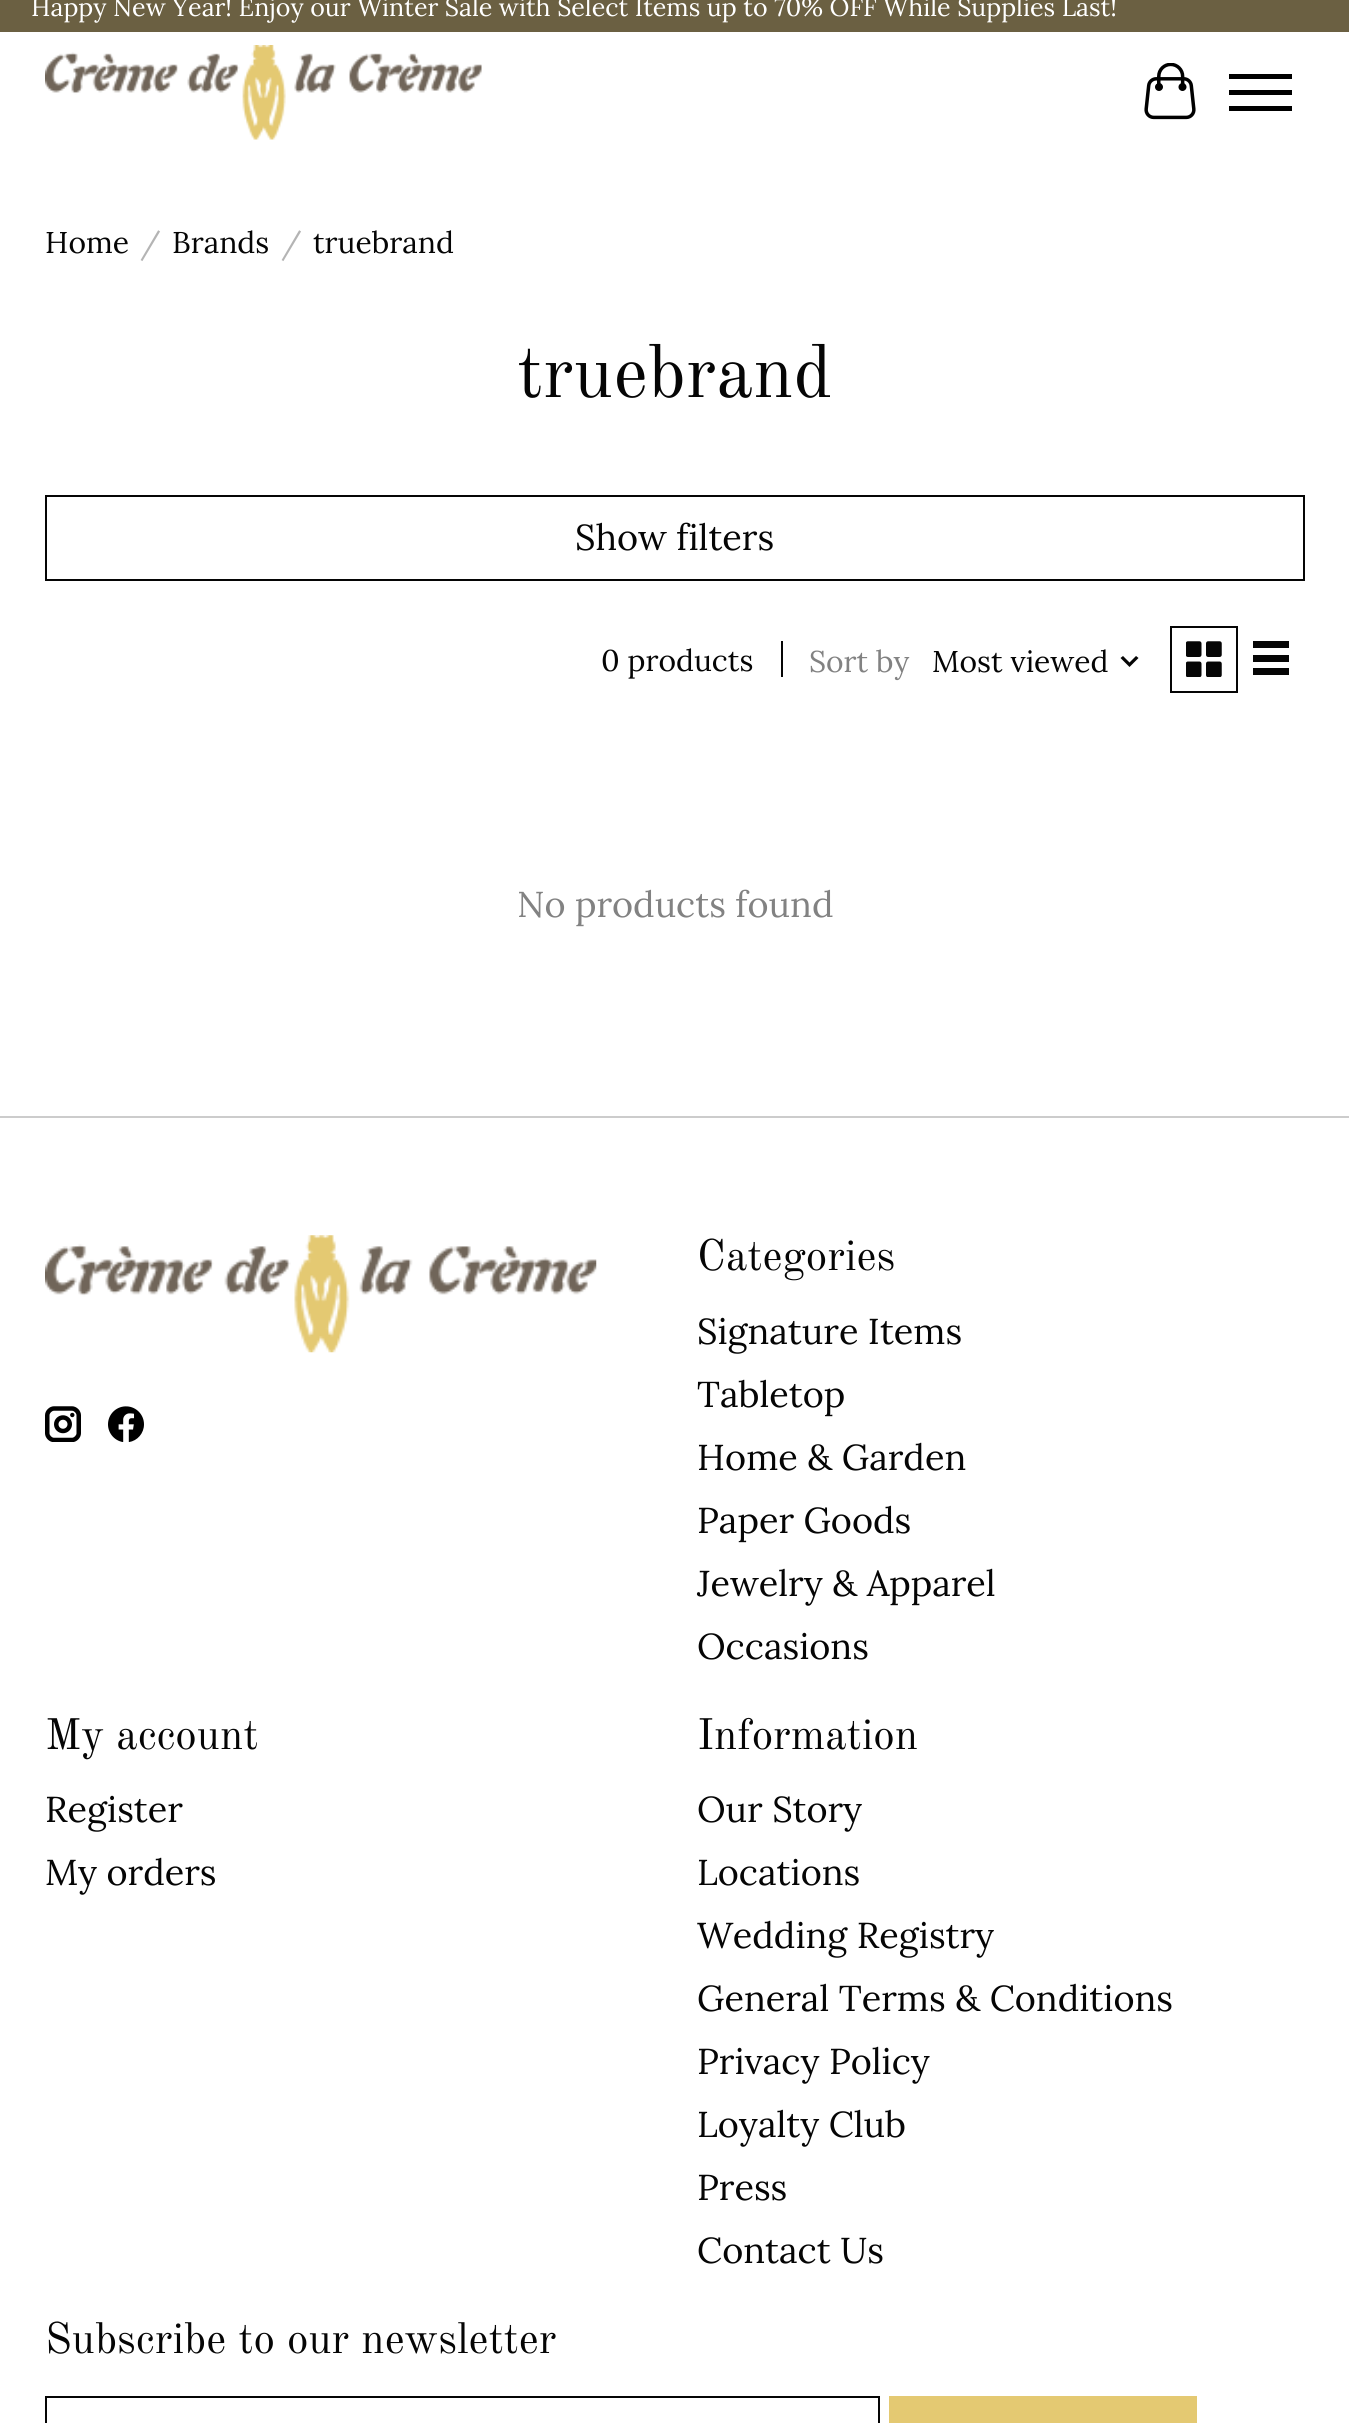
import math
import cairo

surface = cairo.ImageSurface(cairo.FORMAT_RGB24, 1349, 2423)
ctx = cairo.Context(surface)
options = cairo.FontOptions()
options.set_hint_metrics(cairo.HINT_METRICS_OFF)
options.set_hint_style(cairo.HINT_STYLE_NONE)
ctx.set_font_options(options)
ctx.set_miter_limit(4)


def picture(path, x, y, w, h):
    ctx.save()
    ctx.set_source_surface(cairo.ImageSurface.create_from_png(path), x, y)
    ctx.rectangle(x, y, w, h)
    ctx.fill()
    ctx.restore()


ctx.set_source_rgb(1, 1, 1)
ctx.paint()
ctx.set_source_rgb(0.42, 0.376, 0.259)
ctx.rectangle(0, 0, 1349, 32)
ctx.fill()
ctx.select_font_face("Lora")
ctx.set_font_size(25)
ctx.set_source_rgb(1, 1, 1)
ctx.move_to(31, 16)
ctx.show_text("Happy New Year! Enjoy our Winter Sale with Select Items up to 70% OFF While Supplies Last!")
picture("img1.png", 45, 45, 437, 95)
picture("img2.png", 1144, 63, 52, 57)
ctx.set_source_rgb(0, 0, 0)
ctx.rectangle(1229, 90, 63, 5)
ctx.fill()
ctx.rectangle(1229, 74, 63, 5)
ctx.fill()
ctx.rectangle(1229, 106, 63, 5)
ctx.fill()
ctx.set_font_size(30)
ctx.set_source_rgb(0.02, 0.02, 0.02)
ctx.move_to(45, 253)
ctx.show_text("Home")
ctx.set_source_rgb(0.706, 0.706, 0.706)
ctx.move_to(140, 253)
ctx.show_text("/")
ctx.set_source_rgb(0.02, 0.02, 0.02)
ctx.move_to(172, 253)
ctx.show_text("Brands")
ctx.set_source_rgb(0.706, 0.706, 0.706)
ctx.move_to(281, 253)
ctx.show_text("/")
ctx.set_source_rgb(0.02, 0.02, 0.02)
ctx.move_to(313, 253)
ctx.show_text("truebrand")
ctx.select_font_face("Old Standard TT")
ctx.set_font_size(74.5)
ctx.move_to(517, 397)
ctx.show_text("truebrand")
ctx.rectangle(46, 496, 1258, 84)
ctx.stroke()
ctx.select_font_face("Lora")
ctx.set_font_size(36)
ctx.move_to(575, 550)
ctx.show_text("Show filters")
ctx.set_font_size(30)
ctx.move_to(601, 671)
ctx.show_text("0 products")
ctx.rectangle(781, 641, 2, 36)
ctx.fill()
ctx.set_source_rgb(0.51, 0.51, 0.51)
ctx.move_to(809, 672)
ctx.show_text("Sort by")
ctx.set_source_rgb(0.02, 0.02, 0.02)
ctx.move_to(932, 672)
ctx.show_text("Most viewed")
ctx.new_path()
ctx.move_to(1129.5, 667)
ctx.line_to(1120.5, 658)
ctx.line_to(1123, 656)
ctx.line_to(1129.5, 662.5)
ctx.line_to(1136, 656)
ctx.line_to(1138.5, 658)
ctx.close_path()
ctx.fill()
ctx.rectangle(1171, 627, 66, 65)
ctx.stroke()
picture("img3.png", 1186, 641, 36, 36)
ctx.rectangle(1253, 641, 36, 7)
ctx.fill()
ctx.rectangle(1253, 655, 36, 7)
ctx.fill()
ctx.rectangle(1253, 668, 36, 7)
ctx.fill()
ctx.set_font_size(36)
ctx.set_source_rgb(0.51, 0.51, 0.51)
ctx.move_to(517, 917)
ctx.show_text("No products found")
ctx.set_source_rgb(0.8, 0.8, 0.8)
ctx.rectangle(0, 1116, 1349, 2)
ctx.fill()
picture("img4.png", 45, 1235, 552, 118)
picture("img5.png", 45, 1406, 36, 36)
picture("img6.png", 108, 1406, 36, 36)
ctx.select_font_face("Old Standard TT")
ctx.set_font_size(43.25)
ctx.set_source_rgb(0.02, 0.02, 0.02)
ctx.move_to(697, 1270)
ctx.show_text("Categories")
ctx.select_font_face("Lora")
ctx.set_font_size(36)
ctx.move_to(697, 1344)
ctx.show_text("Signature Items")
ctx.move_to(697, 1407)
ctx.show_text("Tabletop")
ctx.move_to(697, 1470)
ctx.show_text("Home & Garden")
ctx.move_to(697, 1533)
ctx.show_text("Paper Goods")
ctx.move_to(697, 1596)
ctx.show_text("Jewelry & Apparel")
ctx.move_to(697, 1659)
ctx.show_text("Occasions")
ctx.select_font_face("Old Standard TT")
ctx.set_font_size(43.25)
ctx.move_to(45, 1749)
ctx.show_text("My account")
ctx.select_font_face("Lora")
ctx.set_font_size(36)
ctx.move_to(45, 1822)
ctx.show_text("Register")
ctx.move_to(45, 1885)
ctx.show_text("My orders")
ctx.select_font_face("Old Standard TT")
ctx.set_font_size(43.25)
ctx.move_to(697, 1749)
ctx.show_text("Information")
ctx.select_font_face("Lora")
ctx.set_font_size(36)
ctx.move_to(697, 1822)
ctx.show_text("Our Story")
ctx.move_to(697, 1885)
ctx.show_text("Locations")
ctx.move_to(697, 1948)
ctx.show_text("Wedding Registry")
ctx.move_to(697, 2011)
ctx.show_text("General Terms & Conditions")
ctx.move_to(697, 2074)
ctx.show_text("Privacy Policy")
ctx.move_to(697, 2137)
ctx.show_text("Loyalty Club")
ctx.move_to(697, 2200)
ctx.show_text("Press")
ctx.move_to(697, 2263)
ctx.show_text("Contact Us")
ctx.select_font_face("Old Standard TT")
ctx.set_font_size(43.25)
ctx.move_to(45, 2353)
ctx.show_text("Subscribe to our newsletter")
ctx.rectangle(46, 2397, 833, 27)
ctx.stroke()
ctx.set_source_rgb(0.894, 0.788, 0.447)
ctx.rectangle(889, 2396, 308, 27)
ctx.fill()
surface.write_to_png("page.png")
